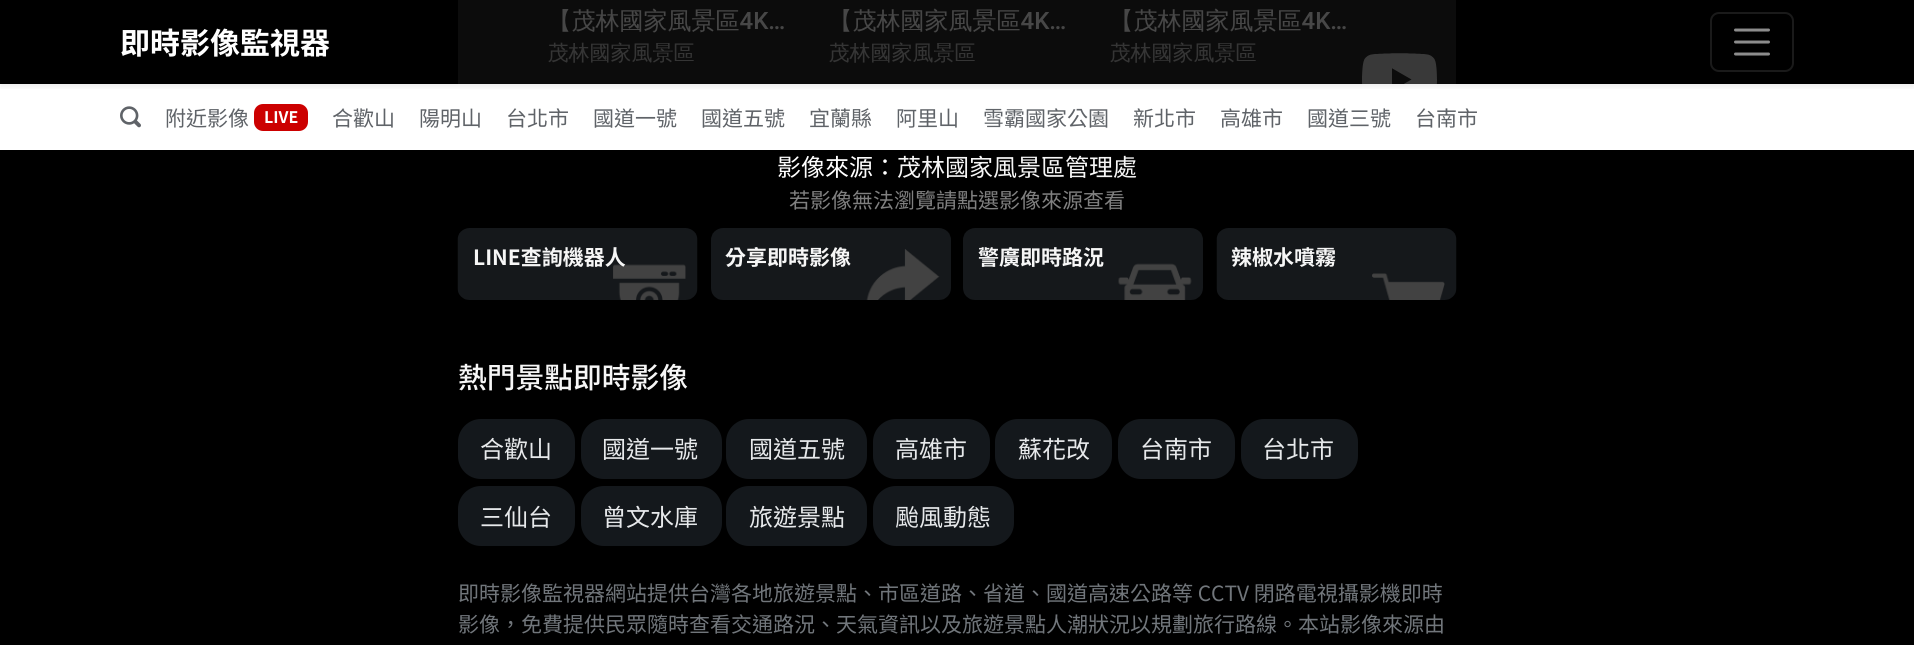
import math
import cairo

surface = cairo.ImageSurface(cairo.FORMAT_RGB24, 1914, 645)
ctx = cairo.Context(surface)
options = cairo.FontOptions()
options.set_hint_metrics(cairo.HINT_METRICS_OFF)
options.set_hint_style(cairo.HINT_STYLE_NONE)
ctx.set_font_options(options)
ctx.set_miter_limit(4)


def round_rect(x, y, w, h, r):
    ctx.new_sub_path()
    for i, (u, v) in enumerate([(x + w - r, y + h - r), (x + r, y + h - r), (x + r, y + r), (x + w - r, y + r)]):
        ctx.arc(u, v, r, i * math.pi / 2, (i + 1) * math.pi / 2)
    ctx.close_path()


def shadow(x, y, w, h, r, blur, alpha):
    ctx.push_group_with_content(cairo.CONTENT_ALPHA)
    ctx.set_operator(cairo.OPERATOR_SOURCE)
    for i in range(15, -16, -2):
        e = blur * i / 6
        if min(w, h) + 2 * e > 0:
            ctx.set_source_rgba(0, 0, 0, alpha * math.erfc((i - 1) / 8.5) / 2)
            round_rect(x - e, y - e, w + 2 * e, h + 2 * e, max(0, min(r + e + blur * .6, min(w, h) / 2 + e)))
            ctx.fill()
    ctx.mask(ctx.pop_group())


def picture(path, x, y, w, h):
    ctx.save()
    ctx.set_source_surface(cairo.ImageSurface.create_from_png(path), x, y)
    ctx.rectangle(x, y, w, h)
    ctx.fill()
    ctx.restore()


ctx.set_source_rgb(0, 0, 0)
ctx.paint()
ctx.set_source_rgb(1, 1, 1)
ctx.rectangle(0, 84, 1914, 66)
ctx.fill()
picture("img2.png", 458, 0, 998, 84)
ctx.save()
ctx.rectangle(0, 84, 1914, 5)
ctx.clip()
ctx.set_source_rgb(0, 0, 0)
shadow(0, 3, 1914, 84, 0, 3, 0.07)
ctx.restore()
ctx.set_source_rgba(0, 0, 0, 0.7)
ctx.rectangle(458, 0, 998, 84)
ctx.fill()
ctx.select_font_face("Noto Sans CJK TC", cairo.FONT_SLANT_NORMAL, cairo.FONT_WEIGHT_BOLD)
ctx.set_font_size(30)
ctx.set_source_rgb(1, 1, 1)
ctx.move_to(120, 54)
ctx.show_text("即時影像監視器")
round_rect(1711, 13, 82, 58, 8)
ctx.set_source_rgb(0.102, 0.102, 0.102)
ctx.stroke()
ctx.new_path()
ctx.move_to(1735.5, 30)
ctx.line_to(1768.5, 30)
ctx.move_to(1735.5, 42)
ctx.line_to(1768.5, 42)
ctx.move_to(1735.5, 54)
ctx.line_to(1768.5, 54)
ctx.set_source_rgb(0.549, 0.549, 0.549)
ctx.set_line_width(3)
ctx.set_line_cap(cairo.LINE_CAP_ROUND)
ctx.stroke()
picture("img1.png", 120, 106, 21, 22)
ctx.select_font_face("Noto Sans CJK TC")
ctx.set_font_size(21)
ctx.set_source_rgb(0.373, 0.388, 0.408)
ctx.move_to(165, 126)
ctx.show_text("附近影像")
ctx.set_source_rgb(0.8, 0, 0)
round_rect(254, 104, 54, 27, 9)
ctx.fill()
ctx.select_font_face("Noto Sans CJK TC", cairo.FONT_SLANT_NORMAL, cairo.FONT_WEIGHT_BOLD)
ctx.set_font_size(16)
ctx.set_source_rgb(1, 1, 1)
ctx.move_to(264, 123)
ctx.show_text("LIVE")
ctx.select_font_face("Noto Sans CJK TC")
ctx.set_font_size(21)
ctx.set_source_rgb(0.373, 0.388, 0.408)
ctx.move_to(332, 126)
ctx.show_text("合歡山")
ctx.move_to(419, 126)
ctx.show_text("陽明山")
ctx.move_to(506, 126)
ctx.show_text("台北市")
ctx.move_to(593, 126)
ctx.show_text("國道一號")
ctx.move_to(701, 126)
ctx.show_text("國道五號")
ctx.move_to(809, 126)
ctx.show_text("宜蘭縣")
ctx.move_to(896, 126)
ctx.show_text("阿里山")
ctx.move_to(983, 126)
ctx.show_text("雪霸國家公園")
ctx.move_to(1133, 126)
ctx.show_text("新北市")
ctx.move_to(1220, 126)
ctx.show_text("高雄市")
ctx.move_to(1307, 126)
ctx.show_text("國道三號")
ctx.move_to(1415, 126)
ctx.show_text("台南市")
ctx.set_font_size(24)
ctx.set_source_rgb(1, 1, 1)
ctx.move_to(777, 176)
ctx.show_text("影像來源：")
ctx.set_source_rgb(0.961, 0.961, 0.961)
ctx.move_to(897, 176)
ctx.show_text("茂林國家風景區管理處")
ctx.set_font_size(21)
ctx.set_source_rgb(0.502, 0.502, 0.502)
ctx.move_to(789, 208)
ctx.show_text("若影像無法瀏覽請點選影像來源查看")
picture("img3.png", 457, 228, 241, 72)
ctx.select_font_face("Noto Sans CJK TC", cairo.FONT_SLANT_NORMAL, cairo.FONT_WEIGHT_BOLD)
ctx.set_source_rgb(0.961, 0.961, 0.961)
ctx.move_to(473, 265)
ctx.show_text("LINE查詢機器人")
picture("img4.png", 711, 228, 240, 72)
ctx.move_to(725, 265)
ctx.show_text("分享即時影像")
picture("img5.png", 963, 228, 240, 72)
ctx.move_to(978, 265)
ctx.show_text("警廣即時路況")
picture("img6.png", 1216, 228, 241, 72)
ctx.move_to(1231, 265)
ctx.show_text("辣椒水噴霧")
ctx.select_font_face("Noto Sans CJK TC Medium")
ctx.set_font_size(28.75)
ctx.move_to(458, 388)
ctx.show_text("熱門景點即時影像")
ctx.set_source_rgb(0.082, 0.094, 0.11)
round_rect(458, 419, 117, 60, 23)
ctx.fill()
ctx.select_font_face("Noto Sans CJK TC")
ctx.set_font_size(24)
ctx.set_source_rgb(0.906, 0.914, 0.918)
ctx.move_to(480, 458)
ctx.show_text("合歡山")
ctx.set_source_rgb(0.082, 0.094, 0.11)
round_rect(581, 419, 141, 60, 23)
ctx.fill()
ctx.set_source_rgb(0.906, 0.914, 0.918)
ctx.move_to(602, 458)
ctx.show_text("國道一號")
ctx.set_source_rgb(0.082, 0.094, 0.11)
round_rect(726, 419, 141, 60, 23)
ctx.fill()
ctx.set_source_rgb(0.906, 0.914, 0.918)
ctx.move_to(749, 458)
ctx.show_text("國道五號")
ctx.set_source_rgb(0.082, 0.094, 0.11)
round_rect(873, 419, 117, 60, 23)
ctx.fill()
ctx.set_source_rgb(0.906, 0.914, 0.918)
ctx.move_to(895, 458)
ctx.show_text("高雄市")
ctx.set_source_rgb(0.082, 0.094, 0.11)
round_rect(995, 419, 117, 60, 23)
ctx.fill()
ctx.set_source_rgb(0.906, 0.914, 0.918)
ctx.move_to(1018, 458)
ctx.show_text("蘇花改")
ctx.set_source_rgb(0.082, 0.094, 0.11)
round_rect(1118, 419, 117, 60, 23)
ctx.fill()
ctx.set_source_rgb(0.906, 0.914, 0.918)
ctx.move_to(1140, 458)
ctx.show_text("台南市")
ctx.set_source_rgb(0.082, 0.094, 0.11)
round_rect(1241, 419, 117, 60, 23)
ctx.fill()
ctx.set_source_rgb(0.906, 0.914, 0.918)
ctx.move_to(1262, 458)
ctx.show_text("台北市")
ctx.set_source_rgb(0.082, 0.094, 0.11)
round_rect(458, 486, 117, 60, 23)
ctx.fill()
ctx.set_source_rgb(0.906, 0.914, 0.918)
ctx.move_to(480, 526)
ctx.show_text("三仙台")
ctx.set_source_rgb(0.082, 0.094, 0.11)
round_rect(581, 486, 141, 60, 23)
ctx.fill()
ctx.set_source_rgb(0.906, 0.914, 0.918)
ctx.move_to(602, 526)
ctx.show_text("曾文水庫")
ctx.set_source_rgb(0.082, 0.094, 0.11)
round_rect(726, 486, 141, 60, 23)
ctx.fill()
ctx.set_source_rgb(0.906, 0.914, 0.918)
ctx.move_to(749, 526)
ctx.show_text("旅遊景點")
ctx.set_source_rgb(0.082, 0.094, 0.11)
round_rect(873, 486, 141, 60, 23)
ctx.fill()
ctx.set_source_rgb(0.906, 0.914, 0.918)
ctx.move_to(895, 526)
ctx.show_text("颱風動態")
ctx.set_font_size(21)
ctx.set_source_rgb(0.443, 0.463, 0.482)
ctx.move_to(458, 601)
ctx.show_text("即時影像監視器網站提供台灣各地旅遊景點、市區道路、省道、國道高速公路等 CCTV 閉路電視攝影機即時")
ctx.move_to(458, 632)
ctx.show_text("影像，免費提供民眾隨時查看交通路況、天氣資訊以及旅遊景點人潮狀況以規劃旅行路線。本站影像來源由")
surface.write_to_png("page.png")
